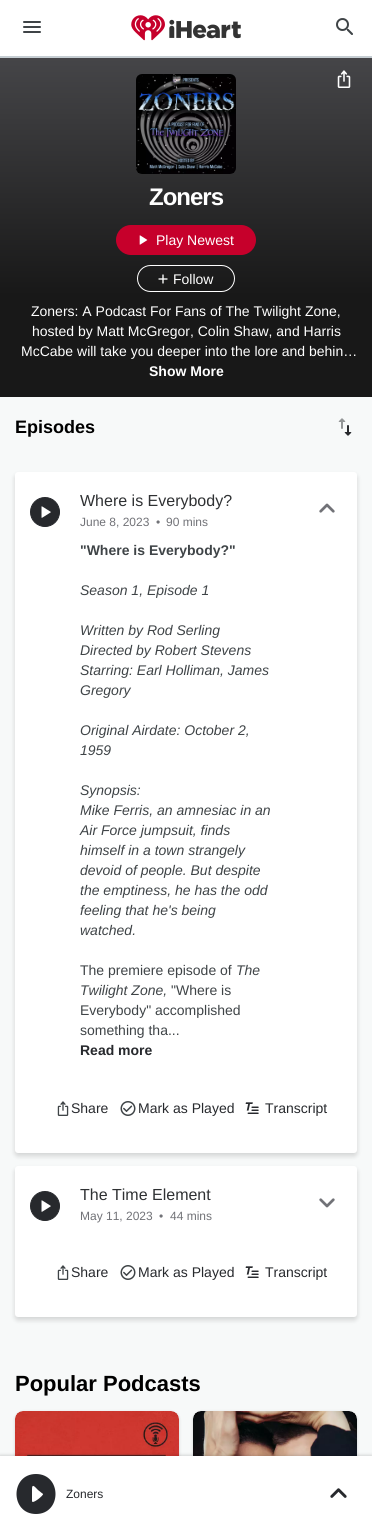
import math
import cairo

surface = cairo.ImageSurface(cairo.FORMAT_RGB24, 372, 1531)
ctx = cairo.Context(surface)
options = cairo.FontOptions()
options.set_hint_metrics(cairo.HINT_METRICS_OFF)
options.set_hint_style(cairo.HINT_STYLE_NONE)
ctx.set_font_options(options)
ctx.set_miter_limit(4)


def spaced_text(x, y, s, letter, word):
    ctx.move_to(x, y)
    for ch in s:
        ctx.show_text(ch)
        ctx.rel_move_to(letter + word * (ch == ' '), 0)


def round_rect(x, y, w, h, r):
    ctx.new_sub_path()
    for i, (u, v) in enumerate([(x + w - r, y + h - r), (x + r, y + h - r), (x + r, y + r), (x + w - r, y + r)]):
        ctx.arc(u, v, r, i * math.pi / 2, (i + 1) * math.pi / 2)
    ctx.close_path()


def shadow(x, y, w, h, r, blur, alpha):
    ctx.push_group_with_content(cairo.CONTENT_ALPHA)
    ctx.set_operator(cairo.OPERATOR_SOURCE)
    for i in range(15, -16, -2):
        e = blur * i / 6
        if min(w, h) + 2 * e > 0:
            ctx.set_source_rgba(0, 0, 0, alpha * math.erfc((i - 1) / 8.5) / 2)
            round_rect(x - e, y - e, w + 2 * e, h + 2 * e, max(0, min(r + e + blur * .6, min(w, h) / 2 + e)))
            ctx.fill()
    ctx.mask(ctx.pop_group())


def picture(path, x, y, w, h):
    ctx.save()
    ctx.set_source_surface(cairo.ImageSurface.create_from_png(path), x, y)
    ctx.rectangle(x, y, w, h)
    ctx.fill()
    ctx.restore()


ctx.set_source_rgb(0.965, 0.973, 0.976)
ctx.paint()
ctx.set_source_rgb(1, 1, 1)
ctx.rectangle(0, 0, 372, 56)
ctx.fill()
ctx.set_source_rgb(0.773, 0.804, 0.824)
ctx.rectangle(0, 56, 372, 2)
ctx.fill()
picture("img1.png", 23, 21, 18, 12)
picture("img2.png", 131, 15, 110, 26)
picture("img3.png", 336, 18, 17, 17)
gradient = cairo.LinearGradient(186, 58, 186, 397)
gradient.add_color_stop_rgba(0, 0.271, 0.271, 0.282, 1)
gradient.add_color_stop_rgba(0.7, 0.094, 0.094, 0.094, 1)
ctx.set_source(gradient)
ctx.rectangle(0, 58, 372, 339)
ctx.fill()
picture("img4.png", 136, 74, 100, 100)
ctx.select_font_face("Liberation Sans", cairo.FONT_SLANT_NORMAL, cairo.FONT_WEIGHT_BOLD)
ctx.set_font_size(24)
ctx.set_source_rgb(1, 1, 1)
spaced_text(149, 205, "Zoners", -1, 0)
ctx.set_source_rgb(0.776, 0, 0.169)
round_rect(116, 225, 140, 30, 15)
ctx.fill()
picture("img5.png", 139, 235, 9, 10)
ctx.select_font_face("Liberation Sans")
ctx.set_font_size(14)
ctx.set_source_rgb(1, 1, 1)
ctx.move_to(156, 245)
ctx.show_text("Play Newest")
picture("img6.png", 337, 70, 14, 18)
round_rect(137.5, 265.5, 97, 26, 13)
ctx.set_line_width(1)
ctx.stroke()
picture("img7.png", 158, 274, 10, 10)
ctx.move_to(173, 284)
ctx.show_text("Follow")
ctx.move_to(31, 316)
ctx.show_text("Zoners: A Podcast For Fans of The Twilight Zone,")
ctx.move_to(32, 336)
ctx.show_text("hosted by Matt McGregor, Colin Shaw, and Harris")
ctx.move_to(21, 356)
ctx.show_text("McCabe will take you deeper into the lore and behin…")
ctx.select_font_face("Liberation Sans", cairo.FONT_SLANT_NORMAL, cairo.FONT_WEIGHT_BOLD)
ctx.move_to(149, 376)
ctx.show_text("Show More")
ctx.set_font_size(18)
ctx.set_source_rgb(0, 0, 0)
ctx.move_to(15, 433)
ctx.show_text("Episodes")
picture("img8.png", 338, 418, 14, 18)
ctx.set_source_rgb(0, 0, 0)
shadow(15, 475, 342, 681, 3, 2.5, 0.15)
ctx.set_source_rgb(1, 1, 1)
round_rect(15, 472, 342, 681, 3)
ctx.fill()
ctx.set_source_rgb(0.153, 0.161, 0.176)
ctx.arc(45, 512, 14.5, 0, 2 * math.pi)
ctx.fill_preserve()
ctx.stroke()
picture("img9.png", 41, 506, 10, 12)
ctx.select_font_face("Liberation Sans")
ctx.set_font_size(16)
ctx.set_source_rgb(0.184, 0.192, 0.2)
ctx.move_to(80, 506)
ctx.show_text("Where is Everybody?")
ctx.set_font_size(12)
ctx.set_source_rgb(0.443, 0.447, 0.467)
ctx.move_to(80, 526)
ctx.show_text("June 8, 2023")
ctx.move_to(156, 526)
ctx.show_text("•")
ctx.move_to(166, 526)
ctx.show_text("90 mins")
picture("img10.png", 319, 503, 16, 10)
ctx.select_font_face("Liberation Sans", cairo.FONT_SLANT_NORMAL, cairo.FONT_WEIGHT_BOLD)
ctx.set_font_size(14)
ctx.set_source_rgb(0.247, 0.267, 0.278)
ctx.move_to(80, 555)
ctx.show_text("\"Where is Everybody?\"")
ctx.select_font_face("Liberation Sans", cairo.FONT_SLANT_ITALIC)
ctx.move_to(80, 595)
ctx.show_text("Season 1, Episode 1")
ctx.move_to(80, 635)
ctx.show_text("Written by Rod Serling")
ctx.move_to(80, 655)
ctx.show_text("Directed by Robert Stevens")
ctx.move_to(80, 675)
ctx.show_text("Starring: Earl Holliman, James")
ctx.move_to(80, 695)
ctx.show_text("Gregory")
ctx.move_to(80, 735)
ctx.show_text("Original Airdate: October 2,")
ctx.move_to(80, 755)
ctx.show_text("1959")
ctx.move_to(80, 795)
ctx.show_text("Synopsis:")
ctx.move_to(80, 815)
ctx.show_text("Mike Ferris, an amnesiac in an")
ctx.move_to(80, 835)
ctx.show_text("Air Force jumpsuit, finds")
ctx.move_to(80, 855)
ctx.show_text("himself in a town strangely")
ctx.move_to(80, 875)
ctx.show_text("devoid of people. But despite")
ctx.move_to(80, 895)
ctx.show_text("the emptiness, he has the odd")
ctx.move_to(80, 915)
ctx.show_text("feeling that he's being")
ctx.move_to(80, 935)
ctx.show_text("watched.")
ctx.select_font_face("Liberation Sans")
ctx.move_to(80, 975)
ctx.show_text("The premiere episode of")
ctx.select_font_face("Liberation Sans", cairo.FONT_SLANT_ITALIC)
ctx.move_to(236, 975)
ctx.show_text("The")
ctx.move_to(80, 995)
ctx.show_text("Twilight Zone,")
ctx.select_font_face("Liberation Sans")
ctx.move_to(171, 995)
ctx.show_text("\"Where is")
ctx.move_to(80, 1015)
ctx.show_text("Everybody\" accomplished")
ctx.move_to(80, 1035)
ctx.show_text("something tha...")
ctx.select_font_face("Liberation Sans", cairo.FONT_SLANT_NORMAL, cairo.FONT_WEIGHT_BOLD)
ctx.set_source_rgb(0.153, 0.161, 0.176)
ctx.move_to(80, 1055)
ctx.show_text("Read more")
picture("img11.png", 57, 1101, 12, 15)
ctx.select_font_face("Liberation Sans")
ctx.move_to(71, 1113)
ctx.show_text("Share")
picture("img12.png", 120, 1101, 16, 15)
ctx.move_to(138, 1113)
ctx.show_text("Mark as Played")
picture("img13.png", 245, 1102, 14, 12)
ctx.move_to(265, 1113)
ctx.show_text("Transcript")
ctx.set_source_rgb(0, 0, 0)
shadow(15, 1169, 342, 151, 3, 2.5, 0.15)
ctx.set_source_rgb(1, 1, 1)
round_rect(15, 1166, 342, 151, 3)
ctx.fill()
ctx.set_source_rgb(0.153, 0.161, 0.176)
ctx.arc(45, 1206, 14.5, 0, 2 * math.pi)
ctx.fill_preserve()
ctx.stroke()
picture("img9.png", 41, 1200, 10, 12)
ctx.set_font_size(16)
ctx.set_source_rgb(0.184, 0.192, 0.2)
ctx.move_to(80, 1200)
ctx.show_text("The Time Element")
ctx.set_font_size(12)
ctx.set_source_rgb(0.443, 0.447, 0.467)
ctx.move_to(80, 1220)
ctx.show_text("May 11, 2023")
ctx.move_to(159, 1220)
ctx.show_text("•")
ctx.move_to(170, 1220)
ctx.show_text("44 mins")
picture("img14.png", 319, 1198, 16, 10)
picture("img11.png", 57, 1265, 12, 15)
ctx.set_font_size(14)
ctx.set_source_rgb(0.153, 0.161, 0.176)
ctx.move_to(71, 1277)
ctx.show_text("Share")
picture("img12.png", 120, 1265, 16, 15)
ctx.move_to(138, 1277)
ctx.show_text("Mark as Played")
picture("img13.png", 245, 1266, 14, 12)
ctx.move_to(265, 1277)
ctx.show_text("Transcript")
ctx.select_font_face("Liberation Sans", cairo.FONT_SLANT_NORMAL, cairo.FONT_WEIGHT_BOLD)
ctx.set_font_size(22)
ctx.set_source_rgb(0, 0, 0)
ctx.move_to(15, 1391)
ctx.show_text("Popular Podcasts")
ctx.set_source_rgb(0, 0, 0)
shadow(15, 1412, 164, 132, 8, 1.5, 0.15)
picture("img15.png", 15, 1411, 164, 45)
shadow(193, 1412, 164, 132, 8, 1.5, 0.15)
picture("img16.png", 193, 1411, 164, 45)
shadow(0, 1455, 372, 75, 0, 1.5, 0.15)
ctx.set_source_rgb(1, 1, 1)
ctx.rectangle(0, 1456, 372, 75)
ctx.fill()
ctx.set_source_rgb(0.153, 0.161, 0.176)
ctx.new_path()
ctx.move_to(36, 1474)
ctx.curve_to(10, 1474, 10, 1514, 36, 1514)
ctx.curve_to(62, 1514, 62, 1474, 36, 1474)
ctx.close_path()
ctx.move_to(32, 1501)
ctx.line_to(32, 1489)
ctx.curve_to(32, 1483, 35, 1487, 38, 1490)
ctx.line_to(43, 1494)
ctx.curve_to(44, 1495, 32, 1505, 32, 1501)
ctx.close_path()
ctx.fill()
ctx.select_font_face("Liberation Sans")
ctx.set_font_size(12)
ctx.move_to(66, 1498)
ctx.show_text("Zoners")
picture("img17.png", 330, 1488, 17, 10)
surface.write_to_png("page.png")
